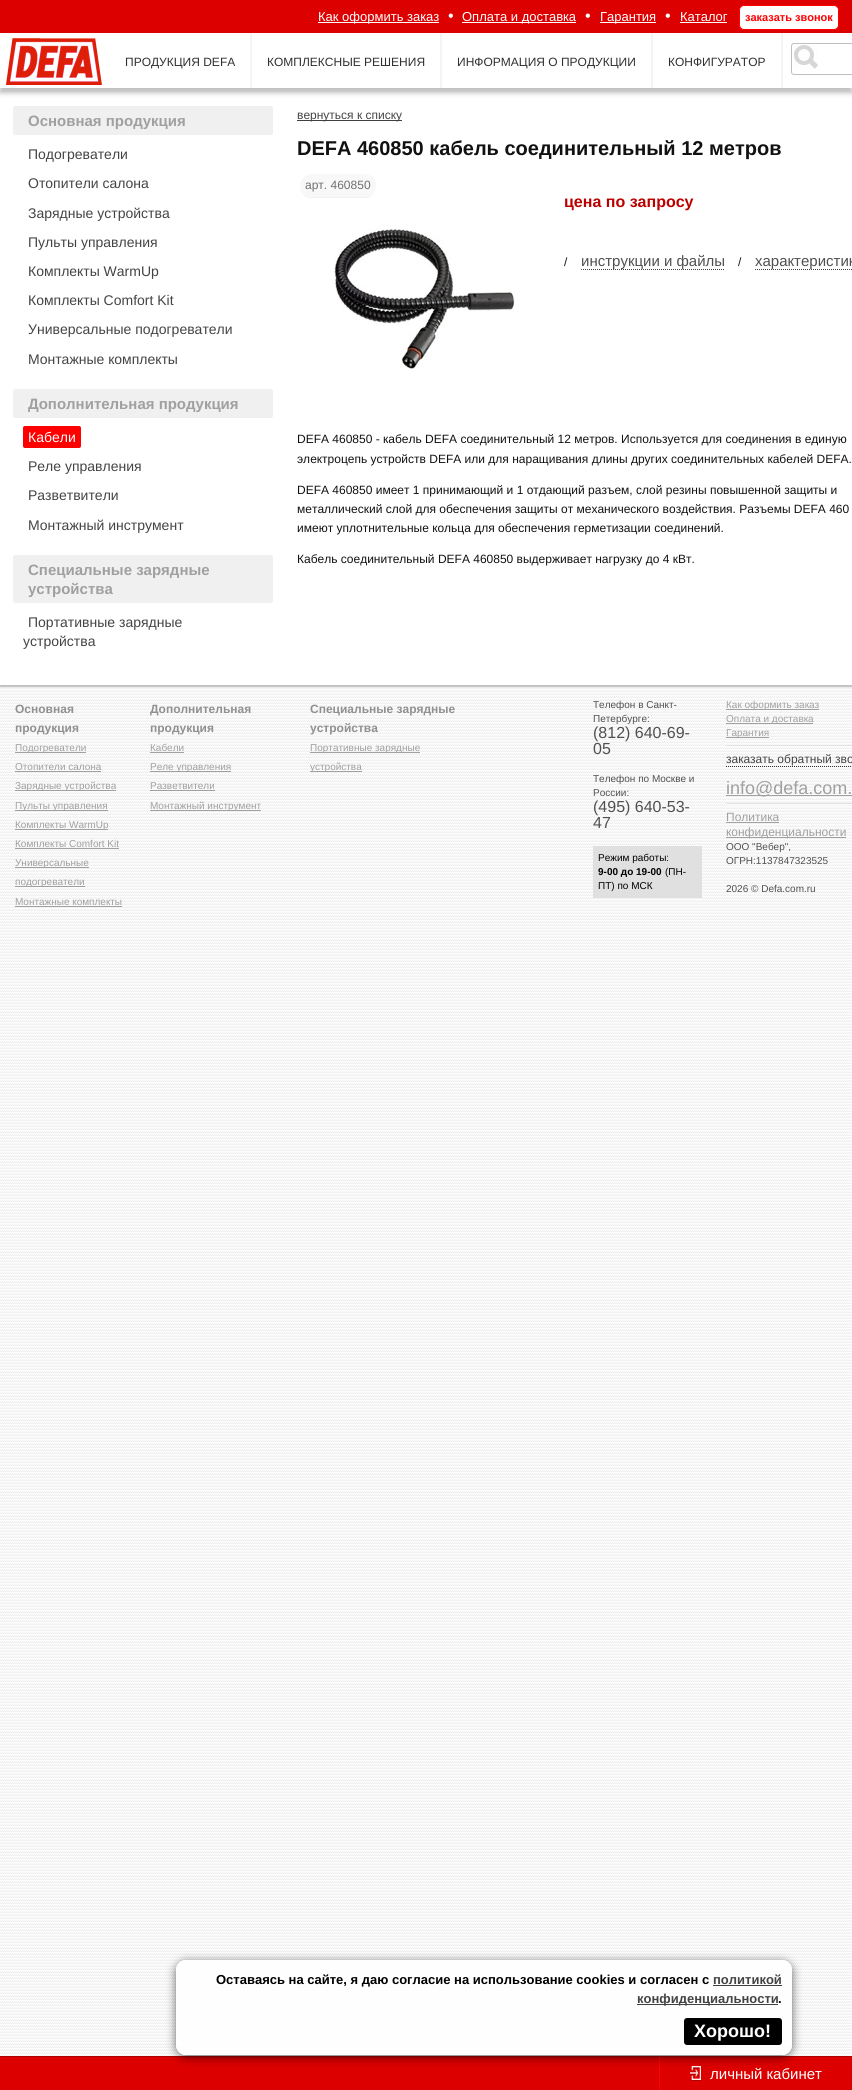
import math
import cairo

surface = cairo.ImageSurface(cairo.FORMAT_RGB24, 852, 2090)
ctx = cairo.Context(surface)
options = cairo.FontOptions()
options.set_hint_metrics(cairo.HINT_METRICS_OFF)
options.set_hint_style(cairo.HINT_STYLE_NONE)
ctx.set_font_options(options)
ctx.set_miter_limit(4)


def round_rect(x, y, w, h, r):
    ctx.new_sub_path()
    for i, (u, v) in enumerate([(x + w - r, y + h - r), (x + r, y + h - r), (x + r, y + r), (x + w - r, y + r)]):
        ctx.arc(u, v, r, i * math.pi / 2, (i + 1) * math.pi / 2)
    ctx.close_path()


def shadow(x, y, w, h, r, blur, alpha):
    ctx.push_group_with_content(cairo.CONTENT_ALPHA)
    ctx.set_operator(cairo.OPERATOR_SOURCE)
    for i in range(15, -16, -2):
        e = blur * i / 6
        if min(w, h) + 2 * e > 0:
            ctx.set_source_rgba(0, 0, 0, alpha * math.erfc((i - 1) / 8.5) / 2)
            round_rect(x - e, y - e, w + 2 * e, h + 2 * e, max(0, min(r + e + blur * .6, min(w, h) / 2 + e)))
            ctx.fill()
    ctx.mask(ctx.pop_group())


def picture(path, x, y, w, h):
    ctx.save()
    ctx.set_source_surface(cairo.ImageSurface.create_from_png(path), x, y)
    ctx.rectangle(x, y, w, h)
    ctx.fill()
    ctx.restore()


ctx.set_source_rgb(1, 1, 1)
ctx.paint()
picture("img1.png", 0, 88, 852, 1968)
ctx.set_source_rgb(0.867, 0, 0)
ctx.rectangle(0, 0, 852, 33)
ctx.fill()
ctx.set_source_rgb(1, 1, 1)
ctx.rectangle(318, 22, 121, 1)
ctx.fill()
ctx.select_font_face("Liberation Sans")
ctx.set_font_size(13)
ctx.move_to(318, 21)
ctx.show_text("Как оформить заказ")
ctx.set_font_size(16)
ctx.move_to(448, 21)
ctx.show_text("•")
ctx.rectangle(462, 22, 114, 1)
ctx.fill()
ctx.set_font_size(13)
ctx.move_to(462, 21)
ctx.show_text("Оплата и доставка")
ctx.set_font_size(16)
ctx.move_to(585, 21)
ctx.show_text("•")
ctx.rectangle(600, 22, 56, 1)
ctx.fill()
ctx.set_font_size(13)
ctx.move_to(600, 21)
ctx.show_text("Гарантия")
ctx.set_font_size(16)
ctx.move_to(665, 21)
ctx.show_text("•")
ctx.set_font_size(13)
ctx.move_to(680, 21)
ctx.show_text("Каталог")
ctx.rectangle(680, 22, 47, 1)
ctx.fill()
round_rect(739.5, 5.5, 99, 24, 4.5)
ctx.fill_preserve()
ctx.set_source_rgb(1, 0, 0)
ctx.set_line_width(1)
ctx.stroke()
ctx.select_font_face("Liberation Sans", cairo.FONT_SLANT_NORMAL, cairo.FONT_WEIGHT_BOLD)
ctx.set_font_size(11)
ctx.move_to(745, 21)
ctx.show_text("заказать звонок")
ctx.set_source_rgb(0.753, 0.753, 0.753)
shadow(0, 95, 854, 592, 0, 0.5, 1)
ctx.set_source_rgb(1, 1, 1)
ctx.rectangle(0, 93, 852, 592)
ctx.fill()
ctx.set_source_rgb(0.753, 0.753, 0.753)
shadow(0, 38, 852, 55, 0, 2.5, 1)
ctx.set_source_rgb(1, 1, 1)
ctx.rectangle(0, 34, 852, 54)
ctx.fill()
picture("img2.png", 5, 38, 97, 47)
ctx.set_source_rgb(0.957, 0.957, 0.957)
ctx.rectangle(250, 33, 2, 55)
ctx.fill()
ctx.select_font_face("Liberation Sans")
ctx.set_font_size(12)
ctx.set_source_rgb(0.188, 0.188, 0.188)
ctx.move_to(125, 66)
ctx.show_text("ПРОДУКЦИЯ DEFA")
ctx.set_source_rgb(0.957, 0.957, 0.957)
ctx.rectangle(440, 33, 2, 55)
ctx.fill()
ctx.set_source_rgb(0.188, 0.188, 0.188)
ctx.move_to(267, 66)
ctx.show_text("КОМПЛЕКСНЫЕ РЕШЕНИЯ")
ctx.set_source_rgb(0.957, 0.957, 0.957)
ctx.rectangle(651, 33, 2, 55)
ctx.fill()
ctx.set_source_rgb(0.188, 0.188, 0.188)
ctx.move_to(457, 66)
ctx.show_text("ИНФОРМАЦИЯ О ПРОДУКЦИИ")
ctx.set_source_rgb(0.957, 0.957, 0.957)
ctx.rectangle(781, 33, 2, 55)
ctx.fill()
ctx.set_source_rgb(0.188, 0.188, 0.188)
ctx.move_to(668, 66)
ctx.show_text("КОНФИГУРАТОР")
round_rect(791.5, 43.5, 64, 31, 2.5)
ctx.set_source_rgb(0.753, 0.753, 0.753)
ctx.stroke()
picture("img3.png", 794, 45, 24, 24)
ctx.set_source_rgb(0.941, 0.941, 0.941)
round_rect(13, 106, 260, 29, 2)
ctx.fill()
ctx.select_font_face("Liberation Sans", cairo.FONT_SLANT_NORMAL, cairo.FONT_WEIGHT_BOLD)
ctx.set_font_size(15)
ctx.set_source_rgb(0.627, 0.627, 0.627)
ctx.move_to(28, 126)
ctx.show_text("Основная продукция")
ctx.select_font_face("Liberation Sans")
ctx.set_font_size(14)
ctx.set_source_rgb(0.267, 0.267, 0.267)
ctx.move_to(28, 159)
ctx.show_text("Подогреватели")
ctx.move_to(28, 188)
ctx.show_text("Отопители салона")
ctx.move_to(28, 218)
ctx.show_text("Зарядные устройства")
ctx.move_to(28, 247)
ctx.show_text("Пульты управления")
ctx.move_to(28, 276)
ctx.show_text("Комплекты WarmUp")
ctx.move_to(28, 305)
ctx.show_text("Комплекты Comfort Kit")
ctx.move_to(28, 334)
ctx.show_text("Универсальные подогреватели")
ctx.move_to(28, 364)
ctx.show_text("Монтажные комплекты")
ctx.set_source_rgb(0.941, 0.941, 0.941)
round_rect(13, 389, 260, 29, 2)
ctx.fill()
ctx.select_font_face("Liberation Sans", cairo.FONT_SLANT_NORMAL, cairo.FONT_WEIGHT_BOLD)
ctx.set_font_size(15)
ctx.set_source_rgb(0.627, 0.627, 0.627)
ctx.move_to(28, 409)
ctx.show_text("Дополнительная продукция")
ctx.set_source_rgb(1, 0, 0)
round_rect(23, 426, 58, 22, 2)
ctx.fill()
ctx.select_font_face("Liberation Sans")
ctx.set_font_size(14)
ctx.set_source_rgb(1, 1, 1)
ctx.move_to(28, 442)
ctx.show_text("Кабели")
ctx.set_source_rgb(0.267, 0.267, 0.267)
ctx.move_to(28, 471)
ctx.show_text("Реле управления")
ctx.move_to(28, 500)
ctx.show_text("Разветвители")
ctx.move_to(28, 530)
ctx.show_text("Монтажный инструмент")
ctx.set_source_rgb(0.941, 0.941, 0.941)
round_rect(13, 555, 260, 48, 2)
ctx.fill()
ctx.select_font_face("Liberation Sans", cairo.FONT_SLANT_NORMAL, cairo.FONT_WEIGHT_BOLD)
ctx.set_font_size(15)
ctx.set_source_rgb(0.627, 0.627, 0.627)
ctx.move_to(28, 575)
ctx.show_text("Специальные зарядные")
ctx.move_to(28, 594)
ctx.show_text("устройства")
ctx.select_font_face("Liberation Sans")
ctx.set_font_size(14)
ctx.set_source_rgb(0.267, 0.267, 0.267)
ctx.move_to(28, 627)
ctx.show_text("Портативные зарядные")
ctx.move_to(23, 646)
ctx.show_text("устройства")
ctx.set_source_rgb(0.251, 0.251, 0.251)
ctx.rectangle(297, 120, 105, 1)
ctx.fill()
ctx.set_font_size(12)
ctx.set_source_rgb(0.267, 0.267, 0.267)
ctx.move_to(297, 119)
ctx.show_text("вернуться к списку")
ctx.select_font_face("Liberation Sans", cairo.FONT_SLANT_NORMAL, cairo.FONT_WEIGHT_BOLD)
ctx.set_font_size(20)
ctx.set_source_rgb(0.067, 0.067, 0.067)
ctx.move_to(297, 155)
ctx.show_text("DEFA 460850 кабель соединительный 12 метров")
ctx.set_source_rgb(0.949, 0.949, 0.949)
ctx.new_path()
ctx.move_to(300, 186)
ctx.curve_to(300, 192, 304, 197, 309, 198)
ctx.line_to(367, 198)
ctx.curve_to(372, 197, 376, 192, 376, 186)
ctx.curve_to(376, 192, 371, 197, 364, 197)
ctx.line_to(312, 197)
ctx.curve_to(305, 197, 300, 192, 300, 186)
ctx.close_path()
ctx.fill()
ctx.set_source_rgb(0.969, 0.969, 0.969)
round_rect(300, 174, 76, 23, 11.5)
ctx.fill()
ctx.select_font_face("Liberation Sans")
ctx.set_font_size(12)
ctx.set_source_rgb(0.439, 0.439, 0.439)
ctx.move_to(305, 189)
ctx.show_text("арт. 460850")
picture("img4.png", 334, 229, 181, 140)
ctx.select_font_face("Liberation Sans", cairo.FONT_SLANT_NORMAL, cairo.FONT_WEIGHT_BOLD)
ctx.set_font_size(16)
ctx.set_source_rgb(0.733, 0, 0)
ctx.move_to(564, 207)
ctx.show_text("цена по запросу")
ctx.select_font_face("Liberation Sans")
ctx.set_font_size(12)
ctx.set_source_rgb(0.067, 0.067, 0.067)
ctx.move_to(564, 266)
ctx.show_text("/")
ctx.new_path()
ctx.move_to(581, 269.5)
ctx.line_to(725, 269.5)
ctx.set_source_rgb(0.251, 0.251, 0.251)
ctx.set_dash([1, 1])
ctx.stroke()
ctx.set_font_size(15)
ctx.set_source_rgb(0.314, 0.314, 0.314)
ctx.move_to(581, 266)
ctx.show_text("инструкции и файлы")
ctx.set_font_size(12)
ctx.set_source_rgb(0.067, 0.067, 0.067)
ctx.move_to(738, 266)
ctx.show_text("/")
ctx.new_path()
ctx.move_to(755, 269.5)
ctx.line_to(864, 269.5)
ctx.set_source_rgb(0.251, 0.251, 0.251)
ctx.stroke()
ctx.set_font_size(15)
ctx.set_source_rgb(0.314, 0.314, 0.314)
ctx.move_to(755, 266)
ctx.show_text("характеристик")
ctx.set_font_size(12)
ctx.set_source_rgb(0.067, 0.067, 0.067)
ctx.move_to(297, 443)
ctx.show_text("DEFA 460850 - кабель DEFA соединительный 12 метров. Используется для соединения в единую")
ctx.move_to(297, 463)
ctx.show_text("электроцепь устройств DEFA или для наращивания длины других соединительных кабелей DEFA.")
ctx.move_to(297, 494)
ctx.show_text("DEFA 460850 имеет 1 принимающий и 1 отдающий разъем, слой резины повышенной защиты и")
ctx.move_to(297, 513)
ctx.show_text("металлический слой для обеспечения защиты от механического воздействия. Разъемы DEFA 460")
ctx.move_to(297, 532)
ctx.show_text("имеют уплотнительные кольца для обеспечения герметизации соединений.")
ctx.move_to(297, 563)
ctx.show_text("Кабель соединительный DEFA 460850 выдерживает нагрузку до 4 кВт.")
ctx.select_font_face("Liberation Sans", cairo.FONT_SLANT_NORMAL, cairo.FONT_WEIGHT_BOLD)
ctx.set_source_rgb(0.565, 0.565, 0.565)
ctx.move_to(15, 713)
ctx.show_text("Основная")
ctx.move_to(15, 732)
ctx.show_text("продукция")
ctx.set_source_rgb(0.627, 0.627, 0.627)
ctx.rectangle(15, 752, 71, 1)
ctx.fill()
ctx.select_font_face("Liberation Sans")
ctx.set_font_size(10)
ctx.move_to(15, 751)
ctx.show_text("Подогреватели")
ctx.move_to(15, 770)
ctx.show_text("Отопители салона")
ctx.rectangle(15, 771, 86, 1)
ctx.fill()
ctx.rectangle(15, 790, 101, 1)
ctx.fill()
ctx.move_to(15, 789)
ctx.show_text("Зарядные устройства")
ctx.rectangle(15, 810, 93, 1)
ctx.fill()
ctx.move_to(15, 809)
ctx.show_text("Пульты управления")
ctx.rectangle(15, 829, 93, 1)
ctx.fill()
ctx.move_to(15, 828)
ctx.show_text("Комплекты WarmUp")
ctx.move_to(15, 847)
ctx.show_text("Комплекты Comfort Kit")
ctx.rectangle(15, 848, 104, 1)
ctx.fill()
ctx.rectangle(15, 867, 74, 1)
ctx.fill()
ctx.move_to(15, 866)
ctx.show_text("Универсальные")
ctx.rectangle(15, 886, 70, 1)
ctx.fill()
ctx.move_to(15, 885)
ctx.show_text("подогреватели")
ctx.move_to(15, 905)
ctx.show_text("Монтажные комплекты")
ctx.rectangle(15, 906, 107, 1)
ctx.fill()
ctx.select_font_face("Liberation Sans", cairo.FONT_SLANT_NORMAL, cairo.FONT_WEIGHT_BOLD)
ctx.set_font_size(12)
ctx.set_source_rgb(0.565, 0.565, 0.565)
ctx.move_to(150, 713)
ctx.show_text("Дополнительная")
ctx.move_to(150, 732)
ctx.show_text("продукция")
ctx.select_font_face("Liberation Sans")
ctx.set_font_size(10)
ctx.set_source_rgb(0.627, 0.627, 0.627)
ctx.move_to(150, 751)
ctx.show_text("Кабели")
ctx.rectangle(150, 752, 34, 1)
ctx.fill()
ctx.rectangle(150, 771, 81, 1)
ctx.fill()
ctx.move_to(150, 770)
ctx.show_text("Реле управления")
ctx.move_to(150, 789)
ctx.show_text("Разветвители")
ctx.rectangle(150, 790, 65, 1)
ctx.fill()
ctx.rectangle(150, 810, 111, 1)
ctx.fill()
ctx.move_to(150, 809)
ctx.show_text("Монтажный инструмент")
ctx.select_font_face("Liberation Sans", cairo.FONT_SLANT_NORMAL, cairo.FONT_WEIGHT_BOLD)
ctx.set_font_size(12)
ctx.set_source_rgb(0.565, 0.565, 0.565)
ctx.move_to(310, 713)
ctx.show_text("Специальные зарядные")
ctx.move_to(310, 732)
ctx.show_text("устройства")
ctx.set_source_rgb(0.627, 0.627, 0.627)
ctx.rectangle(310, 752, 110, 1)
ctx.fill()
ctx.select_font_face("Liberation Sans")
ctx.set_font_size(10)
ctx.move_to(310, 751)
ctx.show_text("Портативные зарядные")
ctx.rectangle(310, 771, 52, 1)
ctx.fill()
ctx.move_to(310, 770)
ctx.show_text("устройства")
ctx.set_source_rgb(0.314, 0.314, 0.314)
ctx.move_to(593, 708)
ctx.show_text("Телефон в Санкт-")
ctx.move_to(593, 722)
ctx.show_text("Петербурге:")
ctx.set_font_size(16)
ctx.move_to(593, 738)
ctx.show_text("(812) 640-69-")
ctx.move_to(593, 754)
ctx.show_text("05")
ctx.set_font_size(10)
ctx.move_to(593, 782)
ctx.show_text("Телефон по Москве и")
ctx.move_to(593, 796)
ctx.show_text("России:")
ctx.set_font_size(16)
ctx.move_to(593, 812)
ctx.show_text("(495) 640-53-")
ctx.move_to(593, 828)
ctx.show_text("47")
ctx.set_source_rgb(0.878, 0.878, 0.878)
ctx.rectangle(593, 846, 109, 52)
ctx.fill()
ctx.set_font_size(10)
ctx.set_source_rgb(0, 0, 0)
ctx.move_to(598, 861)
ctx.show_text("Режим работы:")
ctx.select_font_face("Liberation Sans", cairo.FONT_SLANT_NORMAL, cairo.FONT_WEIGHT_BOLD)
ctx.move_to(598, 875)
ctx.show_text("9-00 до 19-00")
ctx.select_font_face("Liberation Sans")
ctx.move_to(665, 875)
ctx.show_text("(ПН-")
ctx.move_to(598, 889)
ctx.show_text("ПТ) по МСК")
ctx.set_source_rgb(0.627, 0.627, 0.627)
ctx.rectangle(726, 709, 93, 1)
ctx.fill()
ctx.move_to(726, 708)
ctx.show_text("Как оформить заказ")
ctx.rectangle(726, 723, 87, 1)
ctx.fill()
ctx.move_to(726, 722)
ctx.show_text("Оплата и доставка")
ctx.rectangle(726, 737, 43, 1)
ctx.fill()
ctx.move_to(726, 736)
ctx.show_text("Гарантия")
ctx.set_source_rgb(0.878, 0.878, 0.878)
ctx.rectangle(726, 745, 126, 1)
ctx.fill()
ctx.set_source_rgb(1, 1, 1)
ctx.rectangle(726, 746, 126, 1)
ctx.fill()
ctx.set_font_size(12)
ctx.set_source_rgb(0.267, 0.267, 0.267)
ctx.move_to(726, 763)
ctx.show_text("заказать обратный зво")
ctx.new_path()
ctx.move_to(726, 766.5)
ctx.line_to(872, 766.5)
ctx.set_source_rgb(0.188, 0.188, 0.188)
ctx.stroke()
ctx.set_source_rgb(0.627, 0.627, 0.627)
ctx.rectangle(726, 795, 126, 1)
ctx.fill()
ctx.set_font_size(18)
ctx.move_to(726, 794)
ctx.show_text("info@defa.com.")
ctx.set_source_rgb(0.878, 0.878, 0.878)
ctx.rectangle(726, 803, 126, 1)
ctx.fill()
ctx.set_source_rgb(1, 1, 1)
ctx.rectangle(726, 804, 126, 1)
ctx.fill()
ctx.set_font_size(12)
ctx.set_source_rgb(0.627, 0.627, 0.627)
ctx.move_to(726, 821)
ctx.show_text("Политика")
ctx.rectangle(726, 822, 53, 1)
ctx.fill()
ctx.rectangle(726, 837, 120, 1)
ctx.fill()
ctx.move_to(726, 836)
ctx.show_text("конфиденциальности")
ctx.set_font_size(10)
ctx.set_source_rgb(0.314, 0.314, 0.314)
ctx.move_to(726, 850)
ctx.show_text("ООО \"Вебер\",")
ctx.move_to(726, 864)
ctx.show_text("ОГРН:1137847323525")
ctx.move_to(726, 892)
ctx.show_text("2026 © Defa.com.ru")
ctx.set_source_rgb(0.867, 0, 0)
ctx.rectangle(0, 2057, 852, 33)
ctx.fill()
ctx.set_source_rgb(0.667, 0, 0)
ctx.rectangle(0, 2056, 852, 1)
ctx.fill()
picture("img5.png", 690, 2066, 11, 15)
ctx.set_source_rgb(1, 0, 0)
ctx.rectangle(659, 2057, 1, 33)
ctx.fill()
ctx.save()
ctx.set_fill_rule(cairo.FILL_RULE_EVEN_ODD)
ctx.new_path()
ctx.move_to(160, 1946)
ctx.line_to(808, 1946)
ctx.line_to(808, 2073)
ctx.line_to(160, 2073)
ctx.close_path()
ctx.move_to(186, 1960)
ctx.line_to(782, 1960)
ctx.curve_to(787.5, 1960, 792, 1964.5, 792, 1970)
ctx.line_to(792, 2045)
ctx.curve_to(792, 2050.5, 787.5, 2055, 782, 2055)
ctx.line_to(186, 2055)
ctx.curve_to(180.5, 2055, 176, 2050.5, 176, 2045)
ctx.line_to(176, 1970)
ctx.curve_to(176, 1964.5, 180.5, 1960, 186, 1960)
ctx.close_path()
ctx.clip()
ctx.set_source_rgb(0, 0, 0)
shadow(176, 1962, 616, 95, 10, 5, 0.6)
ctx.restore()
ctx.set_source_rgba(1, 1, 1, 0.9)
round_rect(176, 1960, 616, 95, 10)
ctx.fill()
ctx.select_font_face("Liberation Sans", cairo.FONT_SLANT_NORMAL, cairo.FONT_WEIGHT_BOLD)
ctx.set_font_size(13)
ctx.set_source_rgb(0, 0, 0)
ctx.move_to(216, 1984)
ctx.show_text("Оставаясь на сайте, я даю согласие на использование cookies и согласен с")
ctx.set_source_rgb(0.267, 0.267, 0.267)
ctx.move_to(713, 1984)
ctx.show_text("политикой")
ctx.set_source_rgb(0.251, 0.251, 0.251)
ctx.rectangle(713, 1985, 69, 1)
ctx.fill()
ctx.rectangle(637, 2004, 141, 1)
ctx.fill()
ctx.set_source_rgb(0.267, 0.267, 0.267)
ctx.move_to(637, 2003)
ctx.show_text("конфиденциальности")
ctx.set_source_rgb(0, 0, 0)
ctx.move_to(778, 2003)
ctx.show_text(".")
round_rect(684, 2018, 98, 27, 3)
ctx.fill()
ctx.set_font_size(18)
ctx.set_source_rgb(1, 1, 1)
ctx.move_to(694, 2037)
ctx.show_text("Хорошо!")
ctx.select_font_face("Liberation Sans")
ctx.set_font_size(15)
ctx.move_to(710, 2079)
ctx.show_text("личный кабинет")
surface.write_to_png("page.png")
